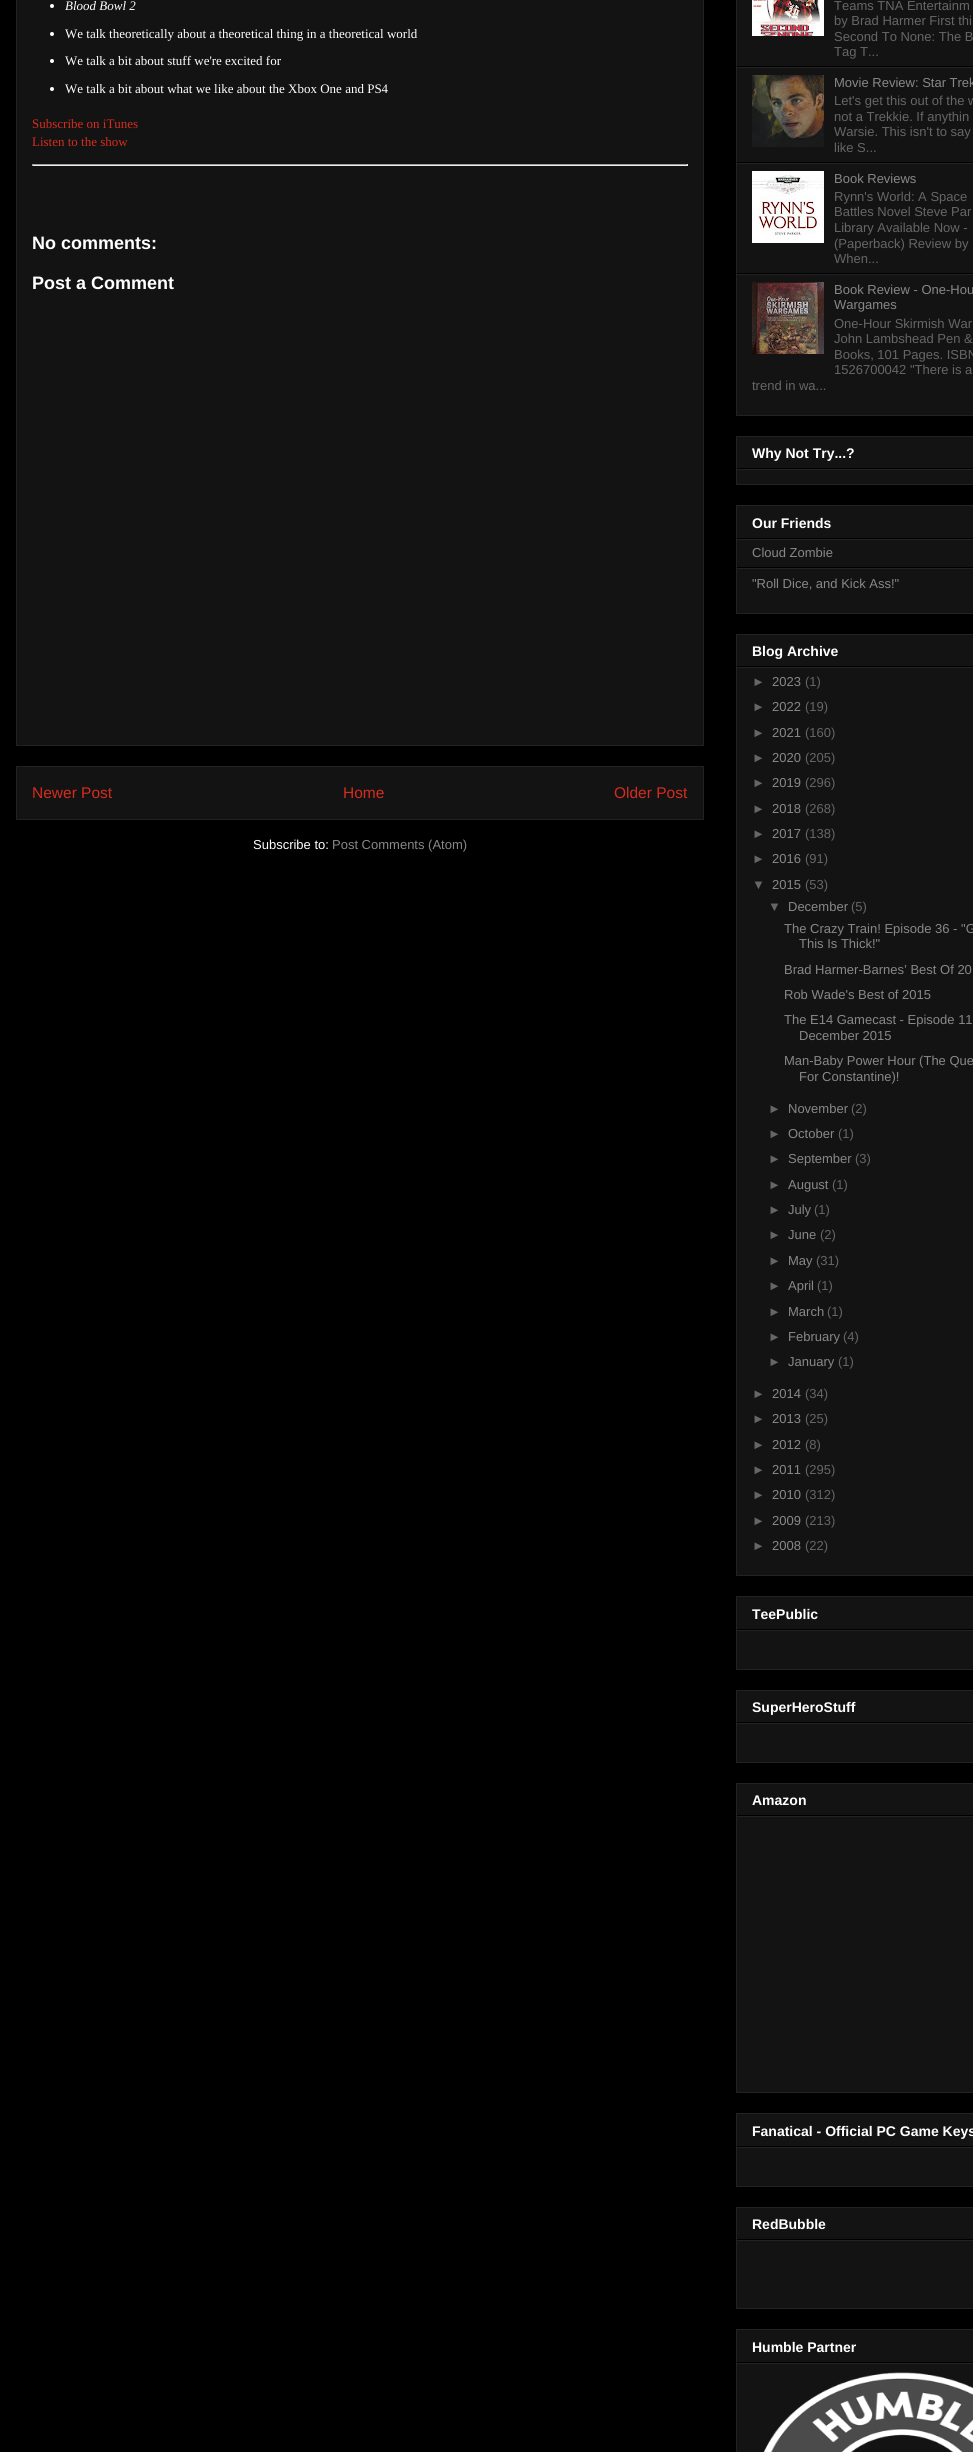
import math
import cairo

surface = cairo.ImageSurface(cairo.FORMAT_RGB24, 973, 2452)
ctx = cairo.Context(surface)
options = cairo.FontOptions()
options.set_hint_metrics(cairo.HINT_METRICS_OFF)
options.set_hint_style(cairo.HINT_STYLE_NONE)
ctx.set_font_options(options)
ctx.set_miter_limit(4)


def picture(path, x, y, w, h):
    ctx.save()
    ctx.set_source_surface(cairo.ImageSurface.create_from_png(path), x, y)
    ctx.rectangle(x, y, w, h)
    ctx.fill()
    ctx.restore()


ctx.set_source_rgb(0, 0, 0)
ctx.paint()
ctx.set_source_rgb(0.078, 0.078, 0.078)
ctx.rectangle(16.5, -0.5, 687, 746)
ctx.fill_preserve()
ctx.set_source_rgb(0.133, 0.133, 0.133)
ctx.set_line_width(1)
ctx.stroke()
ctx.set_source_rgb(1, 1, 1)
ctx.arc(52, 6, 2, 0, 2 * math.pi)
ctx.fill()
ctx.select_font_face("Liberation Serif", cairo.FONT_SLANT_ITALIC)
ctx.set_font_size(13)
ctx.move_to(65, 10)
ctx.show_text("Blood Bowl 2")
ctx.new_path()
ctx.arc(52, 34, 2, 0, 2 * math.pi)
ctx.fill()
ctx.select_font_face("Liberation Serif")
ctx.move_to(65, 38)
ctx.show_text("We talk theoretically about a theoretical thing in a theoretical world")
ctx.new_path()
ctx.arc(52, 61, 2, 0, 2 * math.pi)
ctx.fill()
ctx.move_to(65, 65)
ctx.show_text("We talk a bit about stuff we're excited for")
ctx.new_path()
ctx.arc(52, 89, 2, 0, 2 * math.pi)
ctx.fill()
ctx.move_to(65, 93)
ctx.show_text("We talk a bit about what we like about the Xbox One and PS4")
ctx.set_source_rgb(0.835, 0.173, 0.122)
ctx.move_to(32, 128)
ctx.show_text("Subscribe on iTunes")
ctx.move_to(32, 146)
ctx.show_text("Listen to the show")
ctx.set_source_rgb(0.624, 0.624, 0.624)
ctx.rectangle(32, 164, 656, 1)
ctx.fill()
ctx.set_source_rgb(0.933, 0.933, 0.933)
ctx.rectangle(687, 164, 1, 2)
ctx.fill()
ctx.rectangle(32, 165, 656, 1)
ctx.fill()
ctx.set_source_rgb(0.624, 0.624, 0.624)
ctx.rectangle(32, 164, 1, 2)
ctx.fill()
ctx.select_font_face("Liberation Sans", cairo.FONT_SLANT_NORMAL, cairo.FONT_WEIGHT_BOLD)
ctx.set_font_size(18)
ctx.set_source_rgb(1, 1, 1)
ctx.move_to(32, 249)
ctx.show_text("No comments:")
ctx.move_to(32, 289)
ctx.show_text("Post a Comment")
ctx.set_source_rgb(0.078, 0.078, 0.078)
ctx.rectangle(16.5, 766.5, 687, 53)
ctx.fill_preserve()
ctx.set_source_rgb(0.133, 0.133, 0.133)
ctx.stroke()
ctx.select_font_face("Liberation Sans")
ctx.set_font_size(15.5)
ctx.set_source_rgb(0.835, 0.173, 0.122)
ctx.move_to(32, 798)
ctx.show_text("Newer Post")
ctx.move_to(343, 798)
ctx.show_text("Home")
ctx.move_to(614, 798)
ctx.show_text("Older Post")
ctx.set_font_size(13)
ctx.set_source_rgb(1, 1, 1)
ctx.move_to(253, 849)
ctx.show_text("Subscribe to:")
ctx.set_source_rgb(0.533, 0.533, 0.533)
ctx.move_to(332, 849)
ctx.show_text("Post Comments (Atom)")
ctx.set_source_rgb(0.078, 0.078, 0.078)
ctx.rectangle(736.5, -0.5, 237, 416)
ctx.fill_preserve()
ctx.set_source_rgb(0.133, 0.133, 0.133)
ctx.stroke()
ctx.set_source_rgb(0, 0, 0)
ctx.rectangle(737, 66, 236, 1)
ctx.fill()
picture("img1.png", 752, 0, 72, 36)
ctx.set_source_rgb(0.4, 0.4, 0.4)
ctx.move_to(834, 10)
ctx.show_text("Teams TNA Entertainm")
ctx.move_to(834, 25)
ctx.show_text("by Brad Harmer First thi")
ctx.move_to(834, 41)
ctx.show_text("Second To None: The B")
ctx.move_to(834, 56)
ctx.show_text("Tag T...")
ctx.set_source_rgb(0.133, 0.133, 0.133)
ctx.rectangle(737, 67, 236, 1)
ctx.fill()
ctx.set_source_rgb(0, 0, 0)
ctx.rectangle(737, 162, 236, 1)
ctx.fill()
picture("img2.png", 752, 75, 72, 72)
ctx.set_source_rgb(0.533, 0.533, 0.533)
ctx.move_to(834, 87)
ctx.show_text("Movie Review: Star Trek")
ctx.set_source_rgb(0.4, 0.4, 0.4)
ctx.move_to(834, 105)
ctx.show_text("Let's get this out of the w")
ctx.move_to(834, 121)
ctx.show_text("not a Trekkie. If anythin")
ctx.move_to(834, 136)
ctx.show_text("Warsie. This isn't to say")
ctx.move_to(834, 152)
ctx.show_text("like S...")
ctx.set_source_rgb(0.133, 0.133, 0.133)
ctx.rectangle(737, 163, 236, 1)
ctx.fill()
ctx.set_source_rgb(0, 0, 0)
ctx.rectangle(737, 273, 236, 1)
ctx.fill()
picture("img3.png", 752, 171, 72, 72)
ctx.set_source_rgb(0.533, 0.533, 0.533)
ctx.move_to(834, 183)
ctx.show_text("Book Reviews")
ctx.set_source_rgb(0.4, 0.4, 0.4)
ctx.move_to(834, 201)
ctx.show_text("Rynn's World: A Space")
ctx.move_to(834, 216)
ctx.show_text("Battles Novel Steve Par")
ctx.move_to(834, 232)
ctx.show_text("Library Available Now -")
ctx.move_to(834, 248)
ctx.show_text("(Paperback) Review by")
ctx.move_to(834, 263)
ctx.show_text("When...")
ctx.set_source_rgb(0.133, 0.133, 0.133)
ctx.rectangle(737, 274, 236, 1)
ctx.fill()
picture("img4.png", 752, 282, 72, 72)
ctx.set_source_rgb(0.533, 0.533, 0.533)
ctx.move_to(834, 294)
ctx.show_text("Book Review - One-Hou")
ctx.move_to(834, 309)
ctx.show_text("Wargames")
ctx.set_source_rgb(0.4, 0.4, 0.4)
ctx.move_to(834, 328)
ctx.show_text("One-Hour Skirmish War")
ctx.move_to(834, 343)
ctx.show_text("John Lambshead Pen &")
ctx.move_to(834, 359)
ctx.show_text("Books, 101 Pages. ISBN")
ctx.move_to(834, 374)
ctx.show_text("1526700042 \"There is a")
ctx.move_to(752, 390)
ctx.show_text("trend in wa...")
ctx.set_source_rgb(0.078, 0.078, 0.078)
ctx.rectangle(736.5, 436.5, 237, 48)
ctx.fill_preserve()
ctx.set_source_rgb(0.133, 0.133, 0.133)
ctx.stroke()
ctx.set_source_rgb(0, 0, 0)
ctx.rectangle(737, 468, 236, 1)
ctx.fill()
ctx.select_font_face("Liberation Sans", cairo.FONT_SLANT_NORMAL, cairo.FONT_WEIGHT_BOLD)
ctx.set_font_size(14)
ctx.set_source_rgb(1, 1, 1)
ctx.move_to(752, 458)
ctx.show_text("Why Not Try...?")
ctx.set_source_rgb(0.133, 0.133, 0.133)
ctx.rectangle(737, 469, 236, 1)
ctx.fill()
ctx.set_source_rgb(0.078, 0.078, 0.078)
ctx.rectangle(736.5, 505.5, 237, 108)
ctx.fill_preserve()
ctx.set_source_rgb(0.133, 0.133, 0.133)
ctx.stroke()
ctx.set_source_rgb(0, 0, 0)
ctx.rectangle(737, 538, 236, 1)
ctx.fill()
ctx.set_source_rgb(1, 1, 1)
ctx.move_to(752, 528)
ctx.show_text("Our Friends")
ctx.set_source_rgb(0.133, 0.133, 0.133)
ctx.rectangle(737, 539, 236, 1)
ctx.fill()
ctx.set_source_rgb(0, 0, 0)
ctx.rectangle(737, 567, 236, 1)
ctx.fill()
ctx.select_font_face("Liberation Sans")
ctx.set_font_size(13)
ctx.set_source_rgb(0.533, 0.533, 0.533)
ctx.move_to(752, 557)
ctx.show_text("Cloud Zombie")
ctx.set_source_rgb(0.133, 0.133, 0.133)
ctx.rectangle(737, 568, 236, 1)
ctx.fill()
ctx.set_source_rgb(0.533, 0.533, 0.533)
ctx.move_to(752, 588)
ctx.show_text("\"Roll Dice, and Kick Ass!\"")
ctx.set_source_rgb(0.078, 0.078, 0.078)
ctx.rectangle(736.5, 634.5, 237, 941)
ctx.fill_preserve()
ctx.set_source_rgb(0.133, 0.133, 0.133)
ctx.stroke()
ctx.set_source_rgb(0, 0, 0)
ctx.rectangle(737, 666, 236, 1)
ctx.fill()
ctx.select_font_face("Liberation Sans", cairo.FONT_SLANT_NORMAL, cairo.FONT_WEIGHT_BOLD)
ctx.set_font_size(14)
ctx.set_source_rgb(1, 1, 1)
ctx.move_to(752, 656)
ctx.show_text("Blog Archive")
ctx.set_source_rgb(0.133, 0.133, 0.133)
ctx.rectangle(737, 667, 236, 1)
ctx.fill()
ctx.select_font_face("Liberation Sans")
ctx.set_font_size(13)
ctx.set_source_rgb(0.4, 0.4, 0.4)
ctx.move_to(752, 686)
ctx.show_text("►")
ctx.set_source_rgb(0.533, 0.533, 0.533)
ctx.move_to(772, 686)
ctx.show_text("2023")
ctx.set_source_rgb(0.4, 0.4, 0.4)
ctx.move_to(805, 686)
ctx.show_text("(1)")
ctx.move_to(752, 711)
ctx.show_text("►")
ctx.set_source_rgb(0.533, 0.533, 0.533)
ctx.move_to(772, 711)
ctx.show_text("2022")
ctx.set_source_rgb(0.4, 0.4, 0.4)
ctx.move_to(805, 711)
ctx.show_text("(19)")
ctx.move_to(752, 737)
ctx.show_text("►")
ctx.set_source_rgb(0.533, 0.533, 0.533)
ctx.move_to(772, 737)
ctx.show_text("2021")
ctx.set_source_rgb(0.4, 0.4, 0.4)
ctx.move_to(805, 737)
ctx.show_text("(160)")
ctx.move_to(752, 762)
ctx.show_text("►")
ctx.set_source_rgb(0.533, 0.533, 0.533)
ctx.move_to(772, 762)
ctx.show_text("2020")
ctx.set_source_rgb(0.4, 0.4, 0.4)
ctx.move_to(805, 762)
ctx.show_text("(205)")
ctx.move_to(752, 787)
ctx.show_text("►")
ctx.set_source_rgb(0.533, 0.533, 0.533)
ctx.move_to(772, 787)
ctx.show_text("2019")
ctx.set_source_rgb(0.4, 0.4, 0.4)
ctx.move_to(805, 787)
ctx.show_text("(296)")
ctx.move_to(752, 813)
ctx.show_text("►")
ctx.set_source_rgb(0.533, 0.533, 0.533)
ctx.move_to(772, 813)
ctx.show_text("2018")
ctx.set_source_rgb(0.4, 0.4, 0.4)
ctx.move_to(805, 813)
ctx.show_text("(268)")
ctx.move_to(752, 838)
ctx.show_text("►")
ctx.set_source_rgb(0.533, 0.533, 0.533)
ctx.move_to(772, 838)
ctx.show_text("2017")
ctx.set_source_rgb(0.4, 0.4, 0.4)
ctx.move_to(805, 838)
ctx.show_text("(138)")
ctx.move_to(752, 863)
ctx.show_text("►")
ctx.set_source_rgb(0.533, 0.533, 0.533)
ctx.move_to(772, 863)
ctx.show_text("2016")
ctx.set_source_rgb(0.4, 0.4, 0.4)
ctx.move_to(805, 863)
ctx.show_text("(91)")
ctx.move_to(752, 889)
ctx.show_text("▼")
ctx.set_source_rgb(0.533, 0.533, 0.533)
ctx.move_to(772, 889)
ctx.show_text("2015")
ctx.set_source_rgb(0.4, 0.4, 0.4)
ctx.move_to(805, 889)
ctx.show_text("(53)")
ctx.move_to(768, 911)
ctx.show_text("▼")
ctx.set_source_rgb(0.533, 0.533, 0.533)
ctx.move_to(788, 911)
ctx.show_text("December")
ctx.set_source_rgb(0.4, 0.4, 0.4)
ctx.move_to(851, 911)
ctx.show_text("(5)")
ctx.set_source_rgb(0.533, 0.533, 0.533)
ctx.move_to(784, 933)
ctx.show_text("The Crazy Train! Episode 36 - \"G")
ctx.move_to(799, 948)
ctx.show_text("This Is Thick!\"")
ctx.move_to(784, 974)
ctx.show_text("Brad Harmer-Barnes’ Best Of 20")
ctx.move_to(784, 999)
ctx.show_text("Rob Wade's Best of 2015")
ctx.move_to(784, 1024)
ctx.show_text("The E14 Gamecast - Episode 11")
ctx.move_to(799, 1040)
ctx.show_text("December 2015")
ctx.move_to(784, 1065)
ctx.show_text("Man-Baby Power Hour (The Que")
ctx.move_to(799, 1081)
ctx.show_text("For Constantine)!")
ctx.set_source_rgb(0.4, 0.4, 0.4)
ctx.move_to(768, 1113)
ctx.show_text("►")
ctx.set_source_rgb(0.533, 0.533, 0.533)
ctx.move_to(788, 1113)
ctx.show_text("November")
ctx.set_source_rgb(0.4, 0.4, 0.4)
ctx.move_to(851, 1113)
ctx.show_text("(2)")
ctx.move_to(768, 1138)
ctx.show_text("►")
ctx.set_source_rgb(0.533, 0.533, 0.533)
ctx.move_to(788, 1138)
ctx.show_text("October")
ctx.set_source_rgb(0.4, 0.4, 0.4)
ctx.move_to(838, 1138)
ctx.show_text("(1)")
ctx.move_to(768, 1163)
ctx.show_text("►")
ctx.set_source_rgb(0.533, 0.533, 0.533)
ctx.move_to(788, 1163)
ctx.show_text("September")
ctx.set_source_rgb(0.4, 0.4, 0.4)
ctx.move_to(855, 1163)
ctx.show_text("(3)")
ctx.move_to(768, 1189)
ctx.show_text("►")
ctx.set_source_rgb(0.533, 0.533, 0.533)
ctx.move_to(788, 1189)
ctx.show_text("August")
ctx.set_source_rgb(0.4, 0.4, 0.4)
ctx.move_to(832, 1189)
ctx.show_text("(1)")
ctx.move_to(768, 1214)
ctx.show_text("►")
ctx.set_source_rgb(0.533, 0.533, 0.533)
ctx.move_to(788, 1214)
ctx.show_text("July")
ctx.set_source_rgb(0.4, 0.4, 0.4)
ctx.move_to(814, 1214)
ctx.show_text("(1)")
ctx.move_to(768, 1239)
ctx.show_text("►")
ctx.set_source_rgb(0.533, 0.533, 0.533)
ctx.move_to(788, 1239)
ctx.show_text("June")
ctx.set_source_rgb(0.4, 0.4, 0.4)
ctx.move_to(820, 1239)
ctx.show_text("(2)")
ctx.move_to(768, 1265)
ctx.show_text("►")
ctx.set_source_rgb(0.533, 0.533, 0.533)
ctx.move_to(788, 1265)
ctx.show_text("May")
ctx.set_source_rgb(0.4, 0.4, 0.4)
ctx.move_to(816, 1265)
ctx.show_text("(31)")
ctx.move_to(768, 1290)
ctx.show_text("►")
ctx.set_source_rgb(0.533, 0.533, 0.533)
ctx.move_to(788, 1290)
ctx.show_text("April")
ctx.set_source_rgb(0.4, 0.4, 0.4)
ctx.move_to(817, 1290)
ctx.show_text("(1)")
ctx.move_to(768, 1316)
ctx.show_text("►")
ctx.set_source_rgb(0.533, 0.533, 0.533)
ctx.move_to(788, 1316)
ctx.show_text("March")
ctx.set_source_rgb(0.4, 0.4, 0.4)
ctx.move_to(827, 1316)
ctx.show_text("(1)")
ctx.move_to(768, 1341)
ctx.show_text("►")
ctx.set_source_rgb(0.533, 0.533, 0.533)
ctx.move_to(788, 1341)
ctx.show_text("February")
ctx.set_source_rgb(0.4, 0.4, 0.4)
ctx.move_to(843, 1341)
ctx.show_text("(4)")
ctx.move_to(768, 1366)
ctx.show_text("►")
ctx.set_source_rgb(0.533, 0.533, 0.533)
ctx.move_to(788, 1366)
ctx.show_text("January")
ctx.set_source_rgb(0.4, 0.4, 0.4)
ctx.move_to(838, 1366)
ctx.show_text("(1)")
ctx.move_to(752, 1398)
ctx.show_text("►")
ctx.set_source_rgb(0.533, 0.533, 0.533)
ctx.move_to(772, 1398)
ctx.show_text("2014")
ctx.set_source_rgb(0.4, 0.4, 0.4)
ctx.move_to(805, 1398)
ctx.show_text("(34)")
ctx.move_to(752, 1423)
ctx.show_text("►")
ctx.set_source_rgb(0.533, 0.533, 0.533)
ctx.move_to(772, 1423)
ctx.show_text("2013")
ctx.set_source_rgb(0.4, 0.4, 0.4)
ctx.move_to(805, 1423)
ctx.show_text("(25)")
ctx.move_to(752, 1449)
ctx.show_text("►")
ctx.set_source_rgb(0.533, 0.533, 0.533)
ctx.move_to(772, 1449)
ctx.show_text("2012")
ctx.set_source_rgb(0.4, 0.4, 0.4)
ctx.move_to(805, 1449)
ctx.show_text("(8)")
ctx.move_to(752, 1474)
ctx.show_text("►")
ctx.set_source_rgb(0.533, 0.533, 0.533)
ctx.move_to(772, 1474)
ctx.show_text("2011")
ctx.set_source_rgb(0.4, 0.4, 0.4)
ctx.move_to(805, 1474)
ctx.show_text("(295)")
ctx.move_to(752, 1499)
ctx.show_text("►")
ctx.set_source_rgb(0.533, 0.533, 0.533)
ctx.move_to(772, 1499)
ctx.show_text("2010")
ctx.set_source_rgb(0.4, 0.4, 0.4)
ctx.move_to(805, 1499)
ctx.show_text("(312)")
ctx.move_to(752, 1525)
ctx.show_text("►")
ctx.set_source_rgb(0.533, 0.533, 0.533)
ctx.move_to(772, 1525)
ctx.show_text("2009")
ctx.set_source_rgb(0.4, 0.4, 0.4)
ctx.move_to(805, 1525)
ctx.show_text("(213)")
ctx.move_to(752, 1550)
ctx.show_text("►")
ctx.set_source_rgb(0.533, 0.533, 0.533)
ctx.move_to(772, 1550)
ctx.show_text("2008")
ctx.set_source_rgb(0.4, 0.4, 0.4)
ctx.move_to(805, 1550)
ctx.show_text("(22)")
ctx.set_source_rgb(0.078, 0.078, 0.078)
ctx.rectangle(736.5, 1596.5, 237, 73)
ctx.fill_preserve()
ctx.set_source_rgb(0.133, 0.133, 0.133)
ctx.stroke()
ctx.set_source_rgb(0, 0, 0)
ctx.rectangle(737, 1629, 236, 1)
ctx.fill()
ctx.select_font_face("Liberation Sans", cairo.FONT_SLANT_NORMAL, cairo.FONT_WEIGHT_BOLD)
ctx.set_font_size(14)
ctx.set_source_rgb(1, 1, 1)
ctx.move_to(752, 1619)
ctx.show_text("TeePublic")
ctx.set_source_rgb(0.133, 0.133, 0.133)
ctx.rectangle(737, 1630, 236, 1)
ctx.fill()
ctx.set_source_rgb(0.078, 0.078, 0.078)
ctx.rectangle(736.5, 1690.5, 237, 72)
ctx.fill_preserve()
ctx.set_source_rgb(0.133, 0.133, 0.133)
ctx.stroke()
ctx.set_source_rgb(0, 0, 0)
ctx.rectangle(737, 1722, 236, 1)
ctx.fill()
ctx.set_source_rgb(1, 1, 1)
ctx.move_to(752, 1712)
ctx.show_text("SuperHeroStuff")
ctx.set_source_rgb(0.133, 0.133, 0.133)
ctx.rectangle(737, 1723, 236, 1)
ctx.fill()
ctx.set_source_rgb(0.078, 0.078, 0.078)
ctx.rectangle(736.5, 1783.5, 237, 309)
ctx.fill_preserve()
ctx.set_source_rgb(0.133, 0.133, 0.133)
ctx.stroke()
ctx.set_source_rgb(0, 0, 0)
ctx.rectangle(737, 1815, 236, 1)
ctx.fill()
ctx.set_source_rgb(1, 1, 1)
ctx.move_to(752, 1805)
ctx.show_text("Amazon")
ctx.set_source_rgb(0.133, 0.133, 0.133)
ctx.rectangle(737, 1816, 236, 1)
ctx.fill()
ctx.set_source_rgb(0.078, 0.078, 0.078)
ctx.rectangle(736.5, 2113.5, 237, 73)
ctx.fill_preserve()
ctx.set_source_rgb(0.133, 0.133, 0.133)
ctx.stroke()
ctx.set_source_rgb(0, 0, 0)
ctx.rectangle(737, 2146, 236, 1)
ctx.fill()
ctx.set_source_rgb(1, 1, 1)
ctx.move_to(752, 2136)
ctx.show_text("Fanatical - Official PC Game Keys")
ctx.set_source_rgb(0.133, 0.133, 0.133)
ctx.rectangle(737, 2147, 236, 1)
ctx.fill()
ctx.set_source_rgb(0.078, 0.078, 0.078)
ctx.rectangle(736.5, 2207.5, 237, 101)
ctx.fill_preserve()
ctx.set_source_rgb(0.133, 0.133, 0.133)
ctx.stroke()
ctx.set_source_rgb(0, 0, 0)
ctx.rectangle(737, 2239, 236, 1)
ctx.fill()
ctx.set_source_rgb(1, 1, 1)
ctx.move_to(752, 2229)
ctx.show_text("RedBubble")
ctx.set_source_rgb(0.133, 0.133, 0.133)
ctx.rectangle(737, 2240, 236, 1)
ctx.fill()
ctx.set_source_rgb(0.078, 0.078, 0.078)
ctx.rectangle(736.5, 2329.5, 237, 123)
ctx.fill_preserve()
ctx.set_source_rgb(0.133, 0.133, 0.133)
ctx.stroke()
ctx.set_source_rgb(0, 0, 0)
ctx.rectangle(737, 2362, 236, 1)
ctx.fill()
ctx.set_source_rgb(1, 1, 1)
ctx.move_to(752, 2352)
ctx.show_text("Humble Partner")
ctx.set_source_rgb(0.133, 0.133, 0.133)
ctx.rectangle(737, 2363, 236, 1)
ctx.fill()
picture("img5.png", 763, 2372, 210, 80)
surface.write_to_png("page.png")
